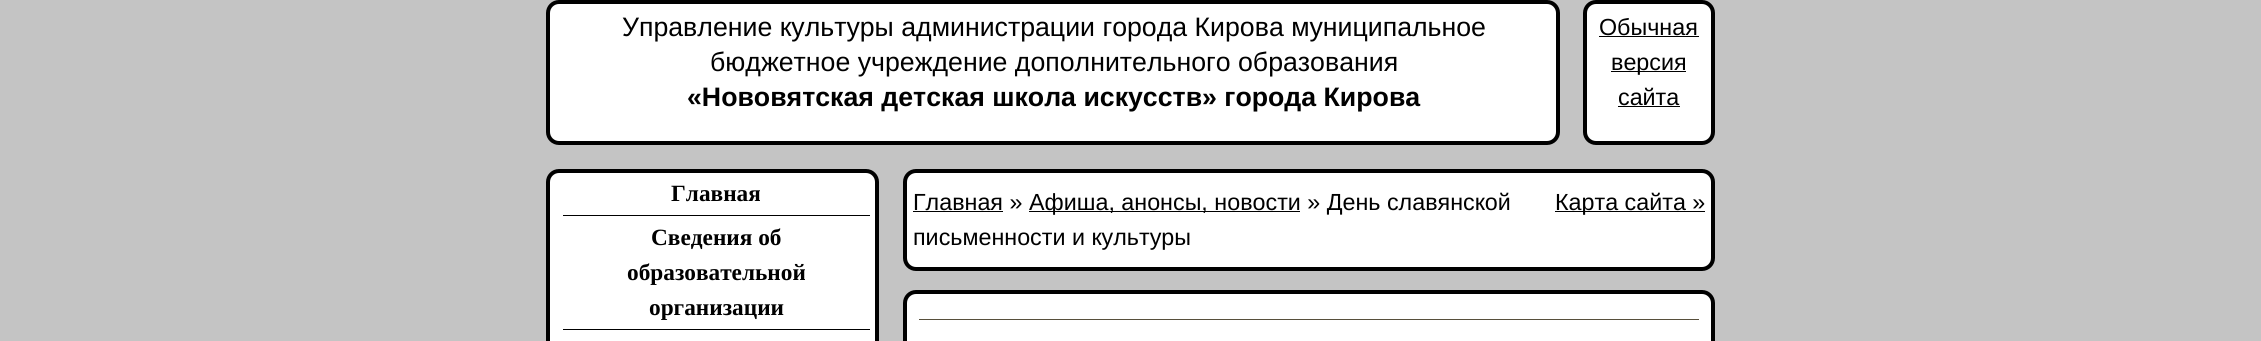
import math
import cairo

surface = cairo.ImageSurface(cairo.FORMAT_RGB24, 2261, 341)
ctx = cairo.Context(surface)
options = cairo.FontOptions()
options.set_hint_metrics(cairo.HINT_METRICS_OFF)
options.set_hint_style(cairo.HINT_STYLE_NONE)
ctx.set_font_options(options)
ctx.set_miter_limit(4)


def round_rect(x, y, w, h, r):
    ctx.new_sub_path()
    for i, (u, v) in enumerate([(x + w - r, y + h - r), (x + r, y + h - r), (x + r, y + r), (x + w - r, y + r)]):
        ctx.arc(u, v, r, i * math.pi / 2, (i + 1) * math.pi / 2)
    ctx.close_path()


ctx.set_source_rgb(0.769, 0.769, 0.769)
ctx.paint()
ctx.set_source_rgb(1, 1, 1)
round_rect(548, 2, 1010, 141, 11)
ctx.fill_preserve()
ctx.set_source_rgb(0, 0, 0)
ctx.set_line_width(4)
ctx.stroke()
ctx.select_font_face("Liberation Sans")
ctx.set_font_size(26.7)
ctx.move_to(622, 36)
ctx.show_text("Управление культуры администрации города Кирова муниципальное")
ctx.move_to(710, 71)
ctx.show_text("бюджетное учреждение дополнительного образования")
ctx.select_font_face("Liberation Sans", cairo.FONT_SLANT_NORMAL, cairo.FONT_WEIGHT_BOLD)
ctx.move_to(687, 106)
ctx.show_text("«Нововятская детская школа искусств» города Кирова")
ctx.set_source_rgb(1, 1, 1)
round_rect(1585, 2, 128, 141, 11)
ctx.fill_preserve()
ctx.set_source_rgb(0, 0, 0)
ctx.stroke()
ctx.select_font_face("Liberation Sans")
ctx.set_font_size(23.3)
ctx.move_to(1599, 35)
ctx.show_text("Обычная")
ctx.rectangle(1599, 36, 100, 1)
ctx.fill()
ctx.rectangle(1611, 71, 75, 1)
ctx.fill()
ctx.move_to(1611, 70)
ctx.show_text("версия")
ctx.move_to(1618, 105)
ctx.show_text("сайта")
ctx.rectangle(1618, 106, 62, 1)
ctx.fill()
ctx.set_source_rgb(1, 1, 1)
round_rect(905, 171, 808, 98, 11)
ctx.fill_preserve()
ctx.set_source_rgb(0, 0, 0)
ctx.stroke()
ctx.move_to(913, 210)
ctx.show_text("Главная »")
ctx.rectangle(913, 211, 90, 1)
ctx.fill()
ctx.rectangle(1029, 211, 271, 1)
ctx.fill()
ctx.move_to(1029, 210)
ctx.show_text("Афиша, анонсы, новости » День славянской")
ctx.rectangle(1555, 211, 150, 1)
ctx.fill()
ctx.move_to(1555, 210)
ctx.show_text("Карта сайта »")
ctx.move_to(913, 245)
ctx.show_text("письменности и культуры")
ctx.set_source_rgb(1, 1, 1)
round_rect(905, 292, 808, 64, 11)
ctx.fill_preserve()
ctx.set_source_rgb(0, 0, 0)
ctx.stroke()
ctx.set_source_rgb(0.341, 0.31, 0.231)
ctx.rectangle(919, 319, 780, 1)
ctx.fill()
ctx.set_source_rgb(1, 1, 1)
round_rect(548, 171, 329, 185, 11)
ctx.fill_preserve()
ctx.set_source_rgb(0, 0, 0)
ctx.stroke()
ctx.rectangle(563, 215, 307, 1)
ctx.fill()
ctx.select_font_face("Liberation Serif", cairo.FONT_SLANT_NORMAL, cairo.FONT_WEIGHT_BOLD)
ctx.move_to(671, 201)
ctx.show_text("Главная")
ctx.rectangle(563, 329, 307, 1)
ctx.fill()
ctx.move_to(651, 245)
ctx.show_text("Сведения об")
ctx.move_to(627, 280)
ctx.show_text("образовательной")
ctx.move_to(649, 315)
ctx.show_text("организации")
surface.write_to_png("page.png")
